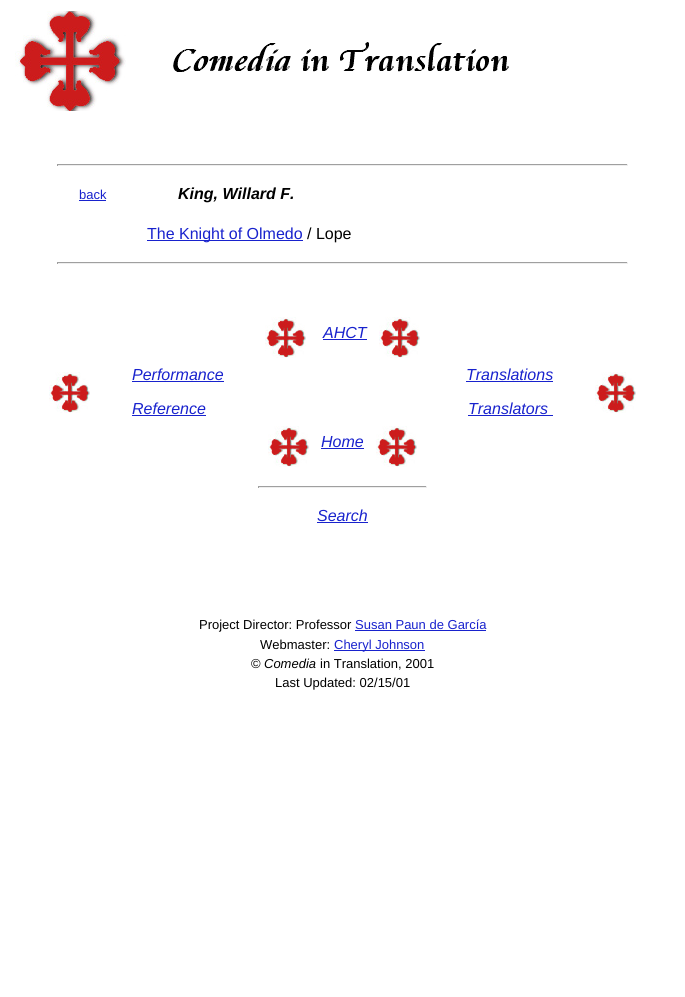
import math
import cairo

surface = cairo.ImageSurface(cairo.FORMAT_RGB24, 685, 997)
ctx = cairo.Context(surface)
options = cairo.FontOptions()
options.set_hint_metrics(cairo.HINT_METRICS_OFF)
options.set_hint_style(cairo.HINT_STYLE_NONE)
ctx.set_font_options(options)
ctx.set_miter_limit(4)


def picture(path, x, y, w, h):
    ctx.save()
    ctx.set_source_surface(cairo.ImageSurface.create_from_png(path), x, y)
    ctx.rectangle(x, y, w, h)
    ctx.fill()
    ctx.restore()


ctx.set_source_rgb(1, 1, 1)
ctx.paint()
picture("img1.png", 15, 11, 111, 100)
picture("img2.png", 173, 42, 336, 30)
ctx.set_source_rgb(0.624, 0.624, 0.624)
ctx.rectangle(57, 164, 571, 1)
ctx.fill()
ctx.set_source_rgb(0.933, 0.933, 0.933)
ctx.rectangle(627, 164, 1, 2)
ctx.fill()
ctx.rectangle(57, 165, 571, 1)
ctx.fill()
ctx.set_source_rgb(0.624, 0.624, 0.624)
ctx.rectangle(57, 164, 1, 2)
ctx.fill()
ctx.select_font_face("Liberation Sans")
ctx.set_font_size(13)
ctx.set_source_rgb(0.094, 0.133, 0.804)
ctx.move_to(79, 199)
ctx.show_text("back")
ctx.rectangle(79, 200, 27, 1)
ctx.fill()
ctx.select_font_face("Liberation Sans", cairo.FONT_SLANT_ITALIC, cairo.FONT_WEIGHT_BOLD)
ctx.set_font_size(16)
ctx.set_source_rgb(0, 0, 0)
ctx.move_to(178, 199)
ctx.show_text("King, Willard F.")
ctx.set_source_rgb(0.094, 0.133, 0.804)
ctx.rectangle(147, 240, 156, 1)
ctx.fill()
ctx.select_font_face("Liberation Sans")
ctx.move_to(147, 239)
ctx.show_text("The Knight of Olmedo")
ctx.set_source_rgb(0, 0, 0)
ctx.move_to(307, 239)
ctx.show_text("/ Lope")
ctx.set_source_rgb(0.624, 0.624, 0.624)
ctx.rectangle(57, 262, 571, 1)
ctx.fill()
ctx.set_source_rgb(0.933, 0.933, 0.933)
ctx.rectangle(627, 262, 1, 2)
ctx.fill()
ctx.rectangle(57, 263, 571, 1)
ctx.fill()
ctx.set_source_rgb(0.624, 0.624, 0.624)
ctx.rectangle(57, 262, 1, 2)
ctx.fill()
picture("img3.png", 265, 317, 41, 41)
ctx.select_font_face("Liberation Sans", cairo.FONT_SLANT_ITALIC)
ctx.set_source_rgb(0.094, 0.133, 0.804)
ctx.move_to(323, 338)
ctx.show_text("AHCT")
ctx.rectangle(323, 339, 44, 1)
ctx.fill()
picture("img3.png", 379, 317, 41, 41)
picture("img3.png", 49, 372, 41, 41)
ctx.move_to(132, 380)
ctx.show_text("Performance")
ctx.rectangle(132, 381, 92, 1)
ctx.fill()
ctx.move_to(132, 414)
ctx.show_text("Reference")
ctx.rectangle(132, 415, 74, 1)
ctx.fill()
ctx.move_to(466, 380)
ctx.show_text("Translations")
ctx.rectangle(466, 381, 87, 1)
ctx.fill()
ctx.move_to(468, 414)
ctx.show_text("Translators")
ctx.rectangle(468, 415, 85, 1)
ctx.fill()
picture("img3.png", 595, 372, 41, 41)
picture("img3.png", 268, 426, 41, 41)
ctx.move_to(321, 447)
ctx.show_text("Home")
ctx.rectangle(321, 448, 43, 1)
ctx.fill()
picture("img3.png", 376, 426, 41, 41)
ctx.set_source_rgb(0.624, 0.624, 0.624)
ctx.rectangle(258, 486, 169, 1)
ctx.fill()
ctx.set_source_rgb(0.933, 0.933, 0.933)
ctx.rectangle(426, 486, 1, 2)
ctx.fill()
ctx.rectangle(258, 487, 169, 1)
ctx.fill()
ctx.set_source_rgb(0.624, 0.624, 0.624)
ctx.rectangle(258, 486, 1, 2)
ctx.fill()
ctx.set_source_rgb(0.094, 0.133, 0.804)
ctx.move_to(317, 521)
ctx.show_text("Search")
ctx.rectangle(317, 522, 51, 1)
ctx.fill()
ctx.select_font_face("Liberation Sans")
ctx.set_font_size(13)
ctx.set_source_rgb(0, 0, 0)
ctx.move_to(199, 629)
ctx.show_text("Project Director: Professor")
ctx.set_source_rgb(0.094, 0.133, 0.804)
ctx.move_to(355, 629)
ctx.show_text("Susan Paun de García")
ctx.rectangle(355, 630, 131, 1)
ctx.fill()
ctx.set_source_rgb(0, 0, 0)
ctx.move_to(260, 649)
ctx.show_text("Webmaster:")
ctx.set_source_rgb(0.094, 0.133, 0.804)
ctx.rectangle(334, 650, 91, 1)
ctx.fill()
ctx.move_to(334, 649)
ctx.show_text("Cheryl Johnson")
ctx.set_source_rgb(0, 0, 0)
ctx.move_to(251, 668)
ctx.show_text("©")
ctx.select_font_face("Liberation Sans", cairo.FONT_SLANT_ITALIC)
ctx.move_to(264, 668)
ctx.show_text("Comedia")
ctx.select_font_face("Liberation Sans")
ctx.move_to(320, 668)
ctx.show_text("in Translation, 2001")
ctx.move_to(275, 687)
ctx.show_text("Last Updated: 02/15/01")
surface.write_to_png("page.png")
